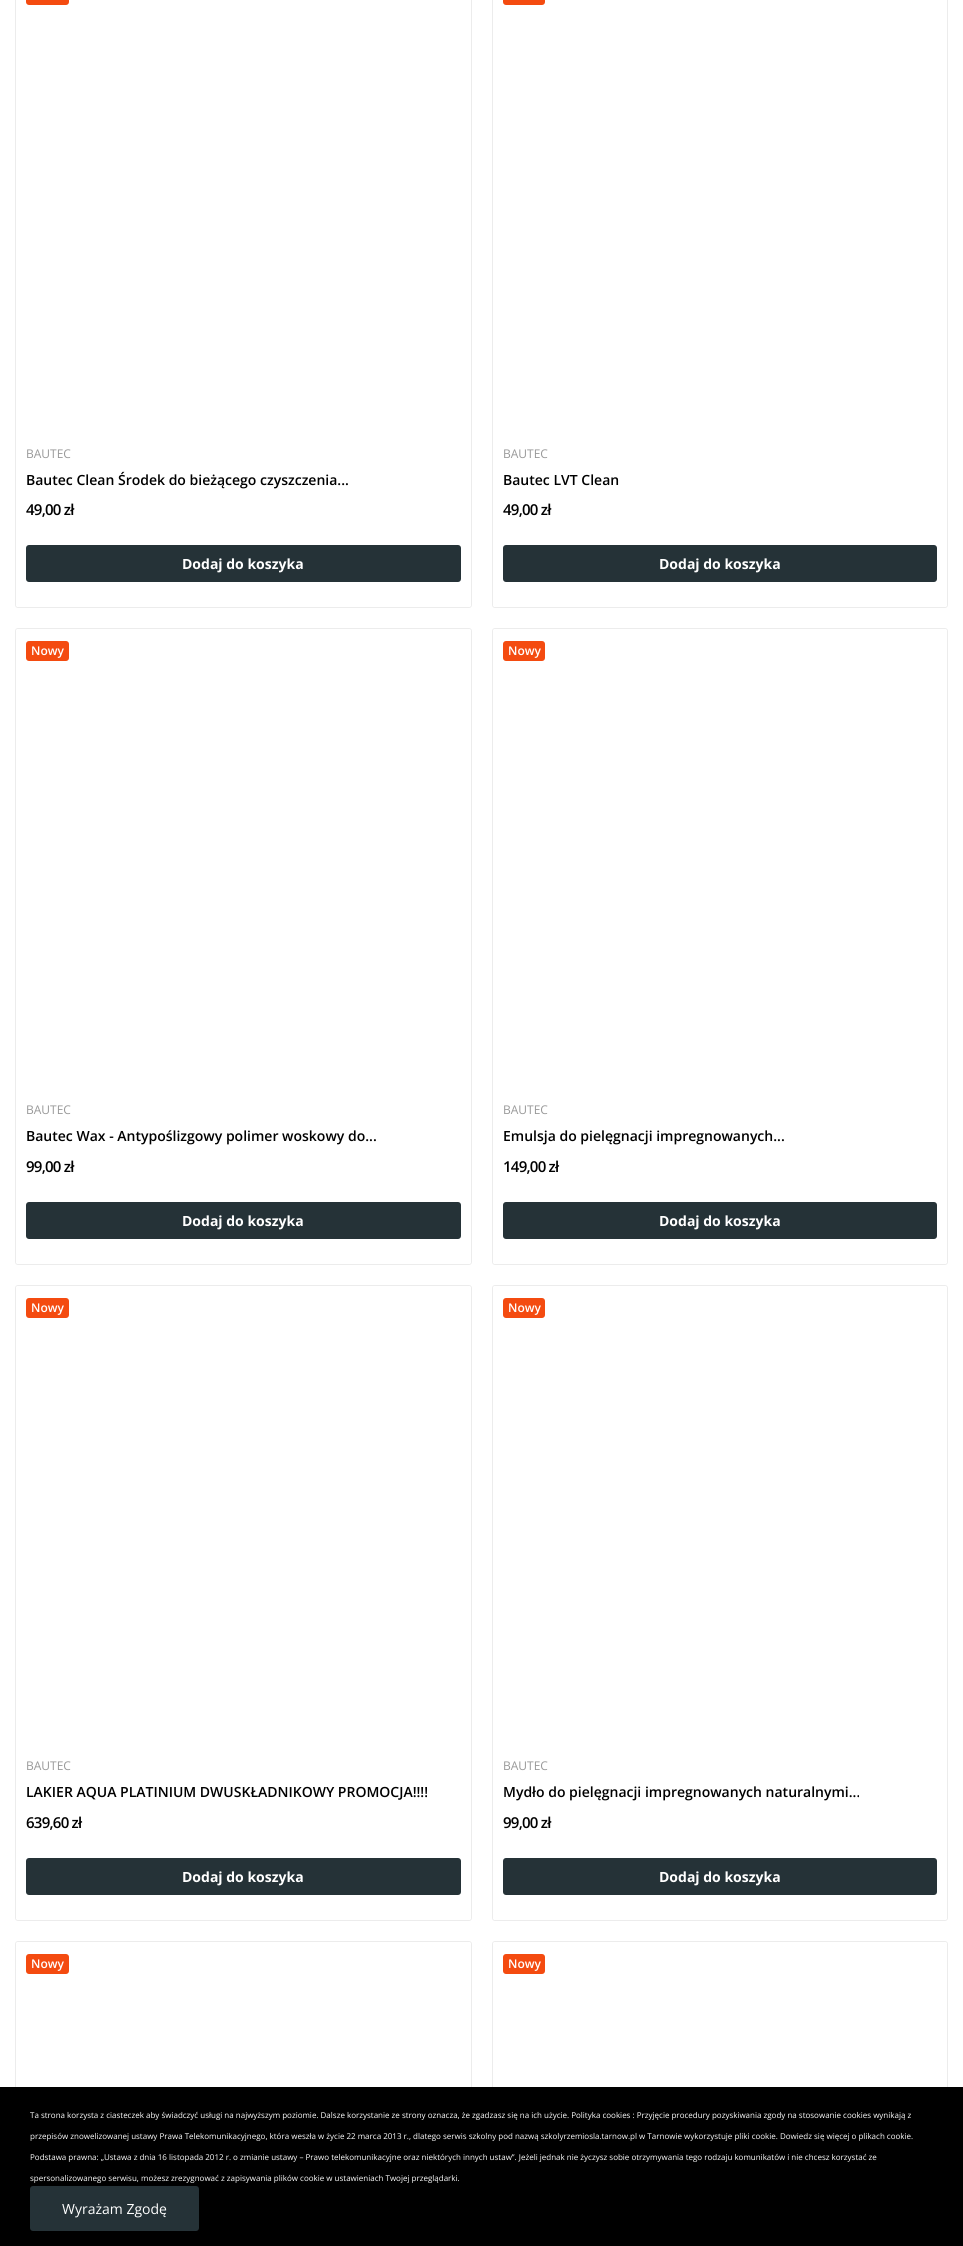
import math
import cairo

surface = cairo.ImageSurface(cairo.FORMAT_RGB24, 963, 2246)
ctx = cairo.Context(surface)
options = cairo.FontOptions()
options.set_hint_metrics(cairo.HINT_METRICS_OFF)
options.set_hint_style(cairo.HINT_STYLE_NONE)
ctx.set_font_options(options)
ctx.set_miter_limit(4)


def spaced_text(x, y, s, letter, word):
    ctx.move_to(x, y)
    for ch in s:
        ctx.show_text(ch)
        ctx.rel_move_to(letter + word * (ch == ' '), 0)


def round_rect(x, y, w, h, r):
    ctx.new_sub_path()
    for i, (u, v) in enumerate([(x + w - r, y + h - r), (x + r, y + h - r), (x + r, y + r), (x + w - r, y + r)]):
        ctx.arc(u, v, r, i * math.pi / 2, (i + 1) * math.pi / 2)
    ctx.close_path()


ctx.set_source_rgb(1, 1, 1)
ctx.paint()
round_rect(15.5, -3.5, 456, 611, 2.5)
ctx.set_source_rgb(0.922, 0.922, 0.922)
ctx.set_line_width(1)
ctx.stroke()
ctx.set_source_rgb(0.957, 0.294, 0.063)
round_rect(26, -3, 43, 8, 3)
ctx.fill()
ctx.set_source_rgb(1, 1, 1)
ctx.new_path()
ctx.move_to(16, 428)
ctx.line_to(471, 428)
ctx.line_to(471, 605)
ctx.curve_to(471, 606, 470, 607, 469, 607)
ctx.line_to(18, 607)
ctx.curve_to(17, 607, 16, 606, 16, 605)
ctx.close_path()
ctx.fill()
ctx.select_font_face("Open Sans")
ctx.set_font_size(12)
ctx.set_source_rgb(0.6, 0.6, 0.6)
ctx.move_to(26, 458)
ctx.show_text("BAUTEC")
ctx.select_font_face("Open Sans SemiBold")
ctx.set_font_size(14)
ctx.set_source_rgb(0, 0, 0)
ctx.move_to(26, 485)
ctx.show_text("Bautec Clean Środek do bieżącego czyszczenia...")
ctx.set_font_size(15)
spaced_text(26, 515, "49,00 zł", -0.75, 0)
ctx.set_source_rgb(0.145, 0.196, 0.216)
round_rect(26, 545, 435, 37, 3)
ctx.fill()
ctx.select_font_face("Open Sans", cairo.FONT_SLANT_NORMAL, cairo.FONT_WEIGHT_BOLD)
ctx.set_font_size(14)
ctx.set_source_rgb(1, 1, 1)
ctx.move_to(182, 569)
ctx.show_text("Dodaj do koszyka")
round_rect(492.5, -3.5, 455, 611, 2.5)
ctx.set_source_rgb(0.922, 0.922, 0.922)
ctx.stroke()
ctx.set_source_rgb(0.957, 0.294, 0.063)
round_rect(503, -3, 42, 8, 3)
ctx.fill()
ctx.set_source_rgb(1, 1, 1)
ctx.new_path()
ctx.move_to(493, 428)
ctx.line_to(947, 428)
ctx.line_to(947, 605)
ctx.curve_to(947, 606, 946, 607, 945, 607)
ctx.line_to(495, 607)
ctx.curve_to(494, 607, 493, 606, 493, 605)
ctx.close_path()
ctx.fill()
ctx.select_font_face("Open Sans")
ctx.set_font_size(12)
ctx.set_source_rgb(0.6, 0.6, 0.6)
ctx.move_to(503, 458)
ctx.show_text("BAUTEC")
ctx.select_font_face("Open Sans SemiBold")
ctx.set_font_size(14)
ctx.set_source_rgb(0, 0, 0)
ctx.move_to(503, 485)
ctx.show_text("Bautec LVT Clean")
ctx.set_font_size(15)
spaced_text(503, 515, "49,00 zł", -0.75, 0)
ctx.set_source_rgb(0.145, 0.196, 0.216)
round_rect(503, 545, 434, 37, 3)
ctx.fill()
ctx.select_font_face("Open Sans", cairo.FONT_SLANT_NORMAL, cairo.FONT_WEIGHT_BOLD)
ctx.set_font_size(14)
ctx.set_source_rgb(1, 1, 1)
ctx.move_to(659, 569)
ctx.show_text("Dodaj do koszyka")
round_rect(15.5, 628.5, 456, 636, 2.5)
ctx.set_source_rgb(0.922, 0.922, 0.922)
ctx.stroke()
ctx.set_source_rgb(1, 1, 1)
ctx.new_path()
ctx.move_to(18, 629)
ctx.line_to(469, 629)
ctx.curve_to(470, 629, 471, 630, 471, 631)
ctx.line_to(471, 1084)
ctx.line_to(16, 1084)
ctx.line_to(16, 631)
ctx.curve_to(16, 630, 17, 629, 18, 629)
ctx.close_path()
ctx.fill()
ctx.set_source_rgb(0.957, 0.294, 0.063)
round_rect(26, 641, 43, 20, 3)
ctx.fill()
ctx.select_font_face("Open Sans SemiBold")
ctx.set_font_size(12)
ctx.set_source_rgb(1, 1, 1)
ctx.move_to(31, 655)
ctx.show_text("Nowy")
ctx.new_path()
ctx.move_to(16, 1084)
ctx.line_to(471, 1084)
ctx.line_to(471, 1262)
ctx.curve_to(471, 1263, 470, 1264, 469, 1264)
ctx.line_to(18, 1264)
ctx.curve_to(17, 1264, 16, 1263, 16, 1262)
ctx.close_path()
ctx.fill()
ctx.select_font_face("Open Sans")
ctx.set_source_rgb(0.6, 0.6, 0.6)
ctx.move_to(26, 1114)
ctx.show_text("BAUTEC")
ctx.select_font_face("Open Sans SemiBold")
ctx.set_font_size(14)
ctx.set_source_rgb(0, 0, 0)
ctx.move_to(26, 1141)
ctx.show_text("Bautec Wax - Antypoślizgowy polimer woskowy do...")
ctx.set_font_size(15)
spaced_text(26, 1172, "99,00 zł", -0.75, 0)
ctx.set_source_rgb(0.145, 0.196, 0.216)
round_rect(26, 1202, 435, 37, 3)
ctx.fill()
ctx.select_font_face("Open Sans", cairo.FONT_SLANT_NORMAL, cairo.FONT_WEIGHT_BOLD)
ctx.set_font_size(14)
ctx.set_source_rgb(1, 1, 1)
ctx.move_to(182, 1226)
ctx.show_text("Dodaj do koszyka")
round_rect(492.5, 628.5, 455, 636, 2.5)
ctx.set_source_rgb(0.922, 0.922, 0.922)
ctx.stroke()
ctx.set_source_rgb(1, 1, 1)
ctx.new_path()
ctx.move_to(495, 629)
ctx.line_to(945, 629)
ctx.curve_to(946, 629, 947, 630, 947, 631)
ctx.line_to(947, 1084)
ctx.line_to(493, 1084)
ctx.line_to(493, 631)
ctx.curve_to(493, 630, 494, 629, 495, 629)
ctx.close_path()
ctx.fill()
ctx.set_source_rgb(0.957, 0.294, 0.063)
round_rect(503, 641, 42, 20, 3)
ctx.fill()
ctx.select_font_face("Open Sans SemiBold")
ctx.set_font_size(12)
ctx.set_source_rgb(1, 1, 1)
ctx.move_to(508, 655)
ctx.show_text("Nowy")
ctx.new_path()
ctx.move_to(493, 1084)
ctx.line_to(947, 1084)
ctx.line_to(947, 1262)
ctx.curve_to(947, 1263, 946, 1264, 945, 1264)
ctx.line_to(495, 1264)
ctx.curve_to(494, 1264, 493, 1263, 493, 1262)
ctx.close_path()
ctx.fill()
ctx.select_font_face("Open Sans")
ctx.set_source_rgb(0.6, 0.6, 0.6)
ctx.move_to(503, 1114)
ctx.show_text("BAUTEC")
ctx.select_font_face("Open Sans SemiBold")
ctx.set_font_size(14)
ctx.set_source_rgb(0, 0, 0)
ctx.move_to(503, 1141)
ctx.show_text("Emulsja do pielęgnacji impregnowanych...")
ctx.set_font_size(15)
spaced_text(503, 1172, "149,00 zł", -0.75, 0)
ctx.set_source_rgb(0.145, 0.196, 0.216)
round_rect(503, 1202, 434, 37, 3)
ctx.fill()
ctx.select_font_face("Open Sans", cairo.FONT_SLANT_NORMAL, cairo.FONT_WEIGHT_BOLD)
ctx.set_font_size(14)
ctx.set_source_rgb(1, 1, 1)
ctx.move_to(659, 1226)
ctx.show_text("Dodaj do koszyka")
round_rect(15.5, 1285.5, 456, 635, 2.5)
ctx.set_source_rgb(0.922, 0.922, 0.922)
ctx.stroke()
ctx.set_source_rgb(1, 1, 1)
ctx.new_path()
ctx.move_to(18, 1286)
ctx.line_to(469, 1286)
ctx.curve_to(470, 1286, 471, 1287, 471, 1288)
ctx.line_to(471, 1740)
ctx.line_to(16, 1740)
ctx.line_to(16, 1288)
ctx.curve_to(16, 1287, 17, 1286, 18, 1286)
ctx.close_path()
ctx.fill()
ctx.set_source_rgb(0.957, 0.294, 0.063)
round_rect(26, 1298, 43, 20, 3)
ctx.fill()
ctx.select_font_face("Open Sans SemiBold")
ctx.set_font_size(12)
ctx.set_source_rgb(1, 1, 1)
ctx.move_to(31, 1312)
ctx.show_text("Nowy")
ctx.new_path()
ctx.move_to(16, 1740)
ctx.line_to(471, 1740)
ctx.line_to(471, 1918)
ctx.curve_to(471, 1919, 470, 1920, 469, 1920)
ctx.line_to(18, 1920)
ctx.curve_to(17, 1920, 16, 1919, 16, 1918)
ctx.close_path()
ctx.fill()
ctx.select_font_face("Open Sans")
ctx.set_source_rgb(0.6, 0.6, 0.6)
ctx.move_to(26, 1770)
ctx.show_text("BAUTEC")
ctx.select_font_face("Open Sans SemiBold")
ctx.set_font_size(14)
ctx.set_source_rgb(0, 0, 0)
ctx.move_to(26, 1797)
ctx.show_text("LAKIER AQUA PLATINIUM DWUSKŁADNIKOWY PROMOCJA!!!!")
ctx.set_font_size(15)
spaced_text(26, 1828, "639,60 zł", -0.75, 0)
ctx.set_source_rgb(0.145, 0.196, 0.216)
round_rect(26, 1858, 435, 37, 3)
ctx.fill()
ctx.select_font_face("Open Sans", cairo.FONT_SLANT_NORMAL, cairo.FONT_WEIGHT_BOLD)
ctx.set_font_size(14)
ctx.set_source_rgb(1, 1, 1)
ctx.move_to(182, 1882)
ctx.show_text("Dodaj do koszyka")
round_rect(492.5, 1285.5, 455, 635, 2.5)
ctx.set_source_rgb(0.922, 0.922, 0.922)
ctx.stroke()
ctx.set_source_rgb(1, 1, 1)
ctx.new_path()
ctx.move_to(495, 1286)
ctx.line_to(945, 1286)
ctx.curve_to(946, 1286, 947, 1287, 947, 1288)
ctx.line_to(947, 1740)
ctx.line_to(493, 1740)
ctx.line_to(493, 1288)
ctx.curve_to(493, 1287, 494, 1286, 495, 1286)
ctx.close_path()
ctx.fill()
ctx.set_source_rgb(0.957, 0.294, 0.063)
round_rect(503, 1298, 42, 20, 3)
ctx.fill()
ctx.select_font_face("Open Sans SemiBold")
ctx.set_font_size(12)
ctx.set_source_rgb(1, 1, 1)
ctx.move_to(508, 1312)
ctx.show_text("Nowy")
ctx.new_path()
ctx.move_to(493, 1740)
ctx.line_to(947, 1740)
ctx.line_to(947, 1918)
ctx.curve_to(947, 1919, 946, 1920, 945, 1920)
ctx.line_to(495, 1920)
ctx.curve_to(494, 1920, 493, 1919, 493, 1918)
ctx.close_path()
ctx.fill()
ctx.select_font_face("Open Sans")
ctx.set_source_rgb(0.6, 0.6, 0.6)
ctx.move_to(503, 1770)
ctx.show_text("BAUTEC")
ctx.select_font_face("Open Sans SemiBold")
ctx.set_font_size(14)
ctx.set_source_rgb(0, 0, 0)
ctx.move_to(503, 1797)
ctx.show_text("Mydło do pielęgnacji impregnowanych naturalnymi...")
ctx.set_font_size(15)
spaced_text(503, 1828, "99,00 zł", -0.75, 0)
ctx.set_source_rgb(0.145, 0.196, 0.216)
round_rect(503, 1858, 434, 37, 3)
ctx.fill()
ctx.select_font_face("Open Sans", cairo.FONT_SLANT_NORMAL, cairo.FONT_WEIGHT_BOLD)
ctx.set_font_size(14)
ctx.set_source_rgb(1, 1, 1)
ctx.move_to(659, 1882)
ctx.show_text("Dodaj do koszyka")
round_rect(15.5, 1941.5, 456, 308, 2.5)
ctx.set_source_rgb(0.922, 0.922, 0.922)
ctx.stroke()
ctx.set_source_rgb(1, 1, 1)
ctx.new_path()
ctx.move_to(18, 1942)
ctx.line_to(469, 1942)
ctx.curve_to(470, 1942, 471, 1943, 471, 1944)
ctx.line_to(471, 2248)
ctx.line_to(16, 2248)
ctx.line_to(16, 1944)
ctx.curve_to(16, 1943, 17, 1942, 18, 1942)
ctx.close_path()
ctx.fill()
ctx.set_source_rgb(0.957, 0.294, 0.063)
round_rect(26, 1954, 43, 20, 3)
ctx.fill()
ctx.select_font_face("Open Sans SemiBold")
ctx.set_font_size(12)
ctx.set_source_rgb(1, 1, 1)
ctx.move_to(31, 1968)
ctx.show_text("Nowy")
round_rect(492.5, 1941.5, 455, 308, 2.5)
ctx.set_source_rgb(0.922, 0.922, 0.922)
ctx.stroke()
ctx.set_source_rgb(1, 1, 1)
ctx.new_path()
ctx.move_to(495, 1942)
ctx.line_to(945, 1942)
ctx.curve_to(946, 1942, 947, 1943, 947, 1944)
ctx.line_to(947, 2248)
ctx.line_to(493, 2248)
ctx.line_to(493, 1944)
ctx.curve_to(493, 1943, 494, 1942, 495, 1942)
ctx.close_path()
ctx.fill()
ctx.set_source_rgb(0.957, 0.294, 0.063)
round_rect(503, 1954, 42, 20, 3)
ctx.fill()
ctx.set_source_rgb(1, 1, 1)
ctx.move_to(508, 1968)
ctx.show_text("Nowy")
ctx.set_source_rgb(0, 0, 0)
ctx.rectangle(0, 2087, 963, 159)
ctx.fill()
ctx.select_font_face("Open Sans")
ctx.set_font_size(8)
ctx.set_source_rgb(1, 1, 1)
ctx.move_to(30, 2118)
ctx.show_text("Ta strona korzysta z ciasteczek aby świadczyć usługi na najwyższym poziomie. Dalsze korzystanie ze strony oznacza, że zgadzasz się na ich użycie. Polityka cookies : Przyjęcie procedury pozyskiwania zgody na stosowanie cookies wynikają z")
ctx.move_to(30, 2139)
ctx.show_text("przepisów znowelizowanej ustawy Prawa Telekomunikacyjnego, która weszła w życie 22 marca 2013 r., dlatego serwis szkolny pod nazwą szkolyrzemiosla.tarnow.pl w Tarnowie wykorzystuje pliki cookie. Dowiedz się więcej o plikach cookie.")
ctx.move_to(30, 2160)
ctx.show_text("Podstawa prawna: „Ustawa z dnia 16 listopada 2012 r. o zmianie ustawy – Prawo telekomunikacyjne oraz niektórych innych ustaw”. Jeżeli jednak nie życzysz sobie otrzymywania tego rodzaju komunikatów i nie chcesz korzystać ze")
ctx.move_to(30, 2181)
ctx.show_text("spersonalizowanego serwisu, możesz zrezygnować z zapisywania plików cookie w ustawieniach Twojej przeglądarki.")
ctx.set_source_rgb(0.145, 0.196, 0.216)
round_rect(31, 2187, 167, 43, 2)
ctx.fill_preserve()
ctx.set_line_width(2)
ctx.stroke()
ctx.set_font_size(14)
ctx.set_source_rgb(1, 1, 1)
ctx.move_to(62, 2214)
ctx.show_text("Wyrażam Zgodę")
surface.write_to_png("page.png")
